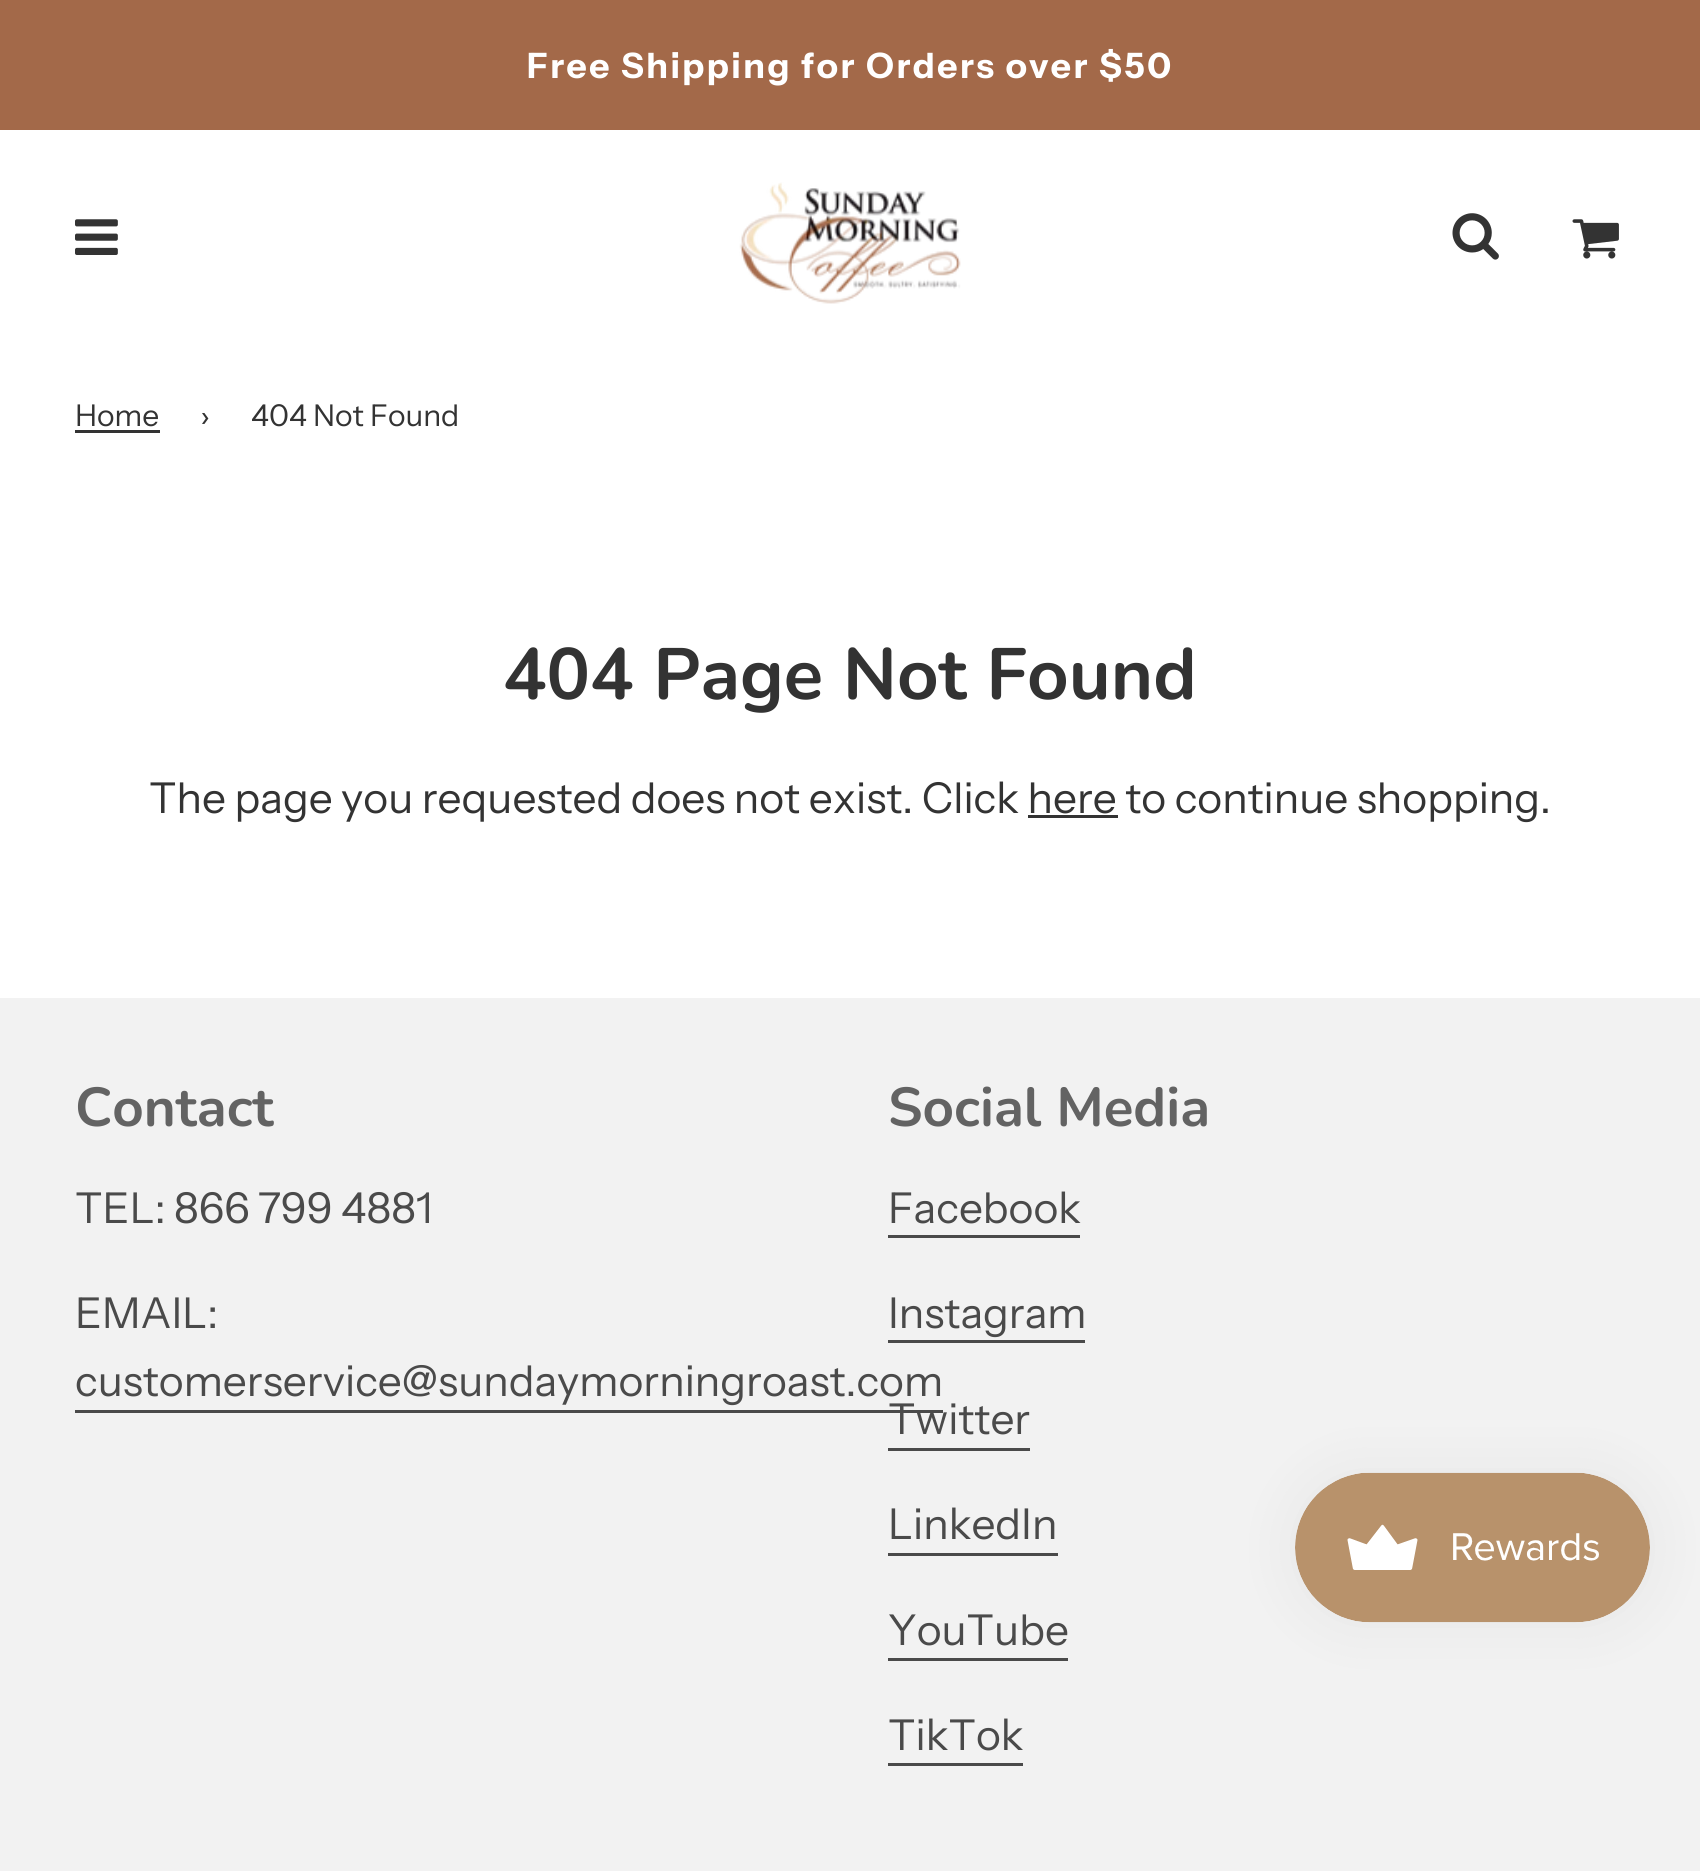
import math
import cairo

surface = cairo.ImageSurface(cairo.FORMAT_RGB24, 1700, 1871)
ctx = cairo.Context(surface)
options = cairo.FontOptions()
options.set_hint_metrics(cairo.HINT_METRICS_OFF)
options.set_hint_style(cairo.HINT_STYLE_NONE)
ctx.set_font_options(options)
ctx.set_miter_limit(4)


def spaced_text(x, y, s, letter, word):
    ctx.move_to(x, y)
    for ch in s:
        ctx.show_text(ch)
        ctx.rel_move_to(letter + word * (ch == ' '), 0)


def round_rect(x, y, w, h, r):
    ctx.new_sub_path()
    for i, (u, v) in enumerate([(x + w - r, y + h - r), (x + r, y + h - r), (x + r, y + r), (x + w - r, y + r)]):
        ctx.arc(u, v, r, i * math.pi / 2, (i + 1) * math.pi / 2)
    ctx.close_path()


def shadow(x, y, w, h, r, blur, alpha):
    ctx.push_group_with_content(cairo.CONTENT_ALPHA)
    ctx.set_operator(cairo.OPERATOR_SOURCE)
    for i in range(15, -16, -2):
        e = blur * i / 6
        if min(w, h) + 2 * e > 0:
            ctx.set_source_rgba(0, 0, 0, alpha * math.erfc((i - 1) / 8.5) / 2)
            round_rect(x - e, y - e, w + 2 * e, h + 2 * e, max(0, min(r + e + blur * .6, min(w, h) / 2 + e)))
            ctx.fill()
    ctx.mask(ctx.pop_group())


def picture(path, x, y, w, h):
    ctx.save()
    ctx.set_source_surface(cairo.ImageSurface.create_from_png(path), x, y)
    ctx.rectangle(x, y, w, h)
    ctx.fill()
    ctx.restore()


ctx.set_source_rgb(1, 1, 1)
ctx.paint()
ctx.set_source_rgb(0.639, 0.412, 0.286)
ctx.rectangle(0, 0, 1700, 130)
ctx.fill()
ctx.select_font_face("Instrument Sans", cairo.FONT_SLANT_NORMAL, cairo.FONT_WEIGHT_BOLD)
ctx.set_font_size(35)
ctx.set_source_rgb(1, 1, 1)
spaced_text(527, 78, "Free Shipping for Orders over $50", 2.5, 0)
picture("img1.png", 75, 219, 43, 36)
picture("img2.png", 739, 182, 222, 122)
picture("img3.png", 1452, 213, 47, 47)
picture("img4.png", 1572, 219, 47, 40)
ctx.select_font_face("Instrument Sans")
ctx.set_font_size(30)
ctx.set_source_rgb(0.2, 0.2, 0.2)
ctx.move_to(75, 426)
ctx.show_text("Home")
ctx.rectangle(75, 430, 85, 3)
ctx.fill()
ctx.move_to(200, 426)
ctx.show_text("›")
ctx.move_to(251, 426)
ctx.show_text("404 Not Found")
ctx.select_font_face("Nunito", cairo.FONT_SLANT_NORMAL, cairo.FONT_WEIGHT_BOLD)
ctx.set_font_size(72.5)
ctx.move_to(503, 699)
ctx.show_text("404 Page Not Found")
ctx.select_font_face("Instrument Sans")
ctx.set_font_size(42.5)
ctx.move_to(149, 813)
ctx.show_text("The page you requested does not exist. Click here to continue shopping.")
ctx.rectangle(1028, 815, 90, 3)
ctx.fill()
ctx.set_source_rgb(0.949, 0.949, 0.949)
ctx.rectangle(0, 998, 1700, 873)
ctx.fill()
ctx.select_font_face("Nunito", cairo.FONT_SLANT_NORMAL, cairo.FONT_WEIGHT_BOLD)
ctx.set_font_size(54.75)
ctx.set_source_rgb(0.388, 0.388, 0.388)
ctx.move_to(75, 1126)
ctx.show_text("Contact")
ctx.select_font_face("Instrument Sans")
ctx.set_font_size(42.5)
ctx.set_source_rgb(0.29, 0.29, 0.29)
ctx.move_to(75, 1223)
ctx.show_text("TEL: 866 799 4881")
ctx.move_to(75, 1328)
ctx.show_text("EMAIL:")
ctx.move_to(75, 1396)
ctx.show_text("customerservice@sundaymorningroast.com")
ctx.rectangle(75, 1410, 868, 3)
ctx.fill()
ctx.select_font_face("Nunito", cairo.FONT_SLANT_NORMAL, cairo.FONT_WEIGHT_BOLD)
ctx.set_font_size(54.75)
ctx.set_source_rgb(0.388, 0.388, 0.388)
ctx.move_to(888, 1126)
ctx.show_text("Social Media")
ctx.select_font_face("Instrument Sans")
ctx.set_font_size(42.5)
ctx.set_source_rgb(0.29, 0.29, 0.29)
ctx.move_to(888, 1223)
ctx.show_text("Facebook")
ctx.rectangle(888, 1235, 192, 3)
ctx.fill()
ctx.move_to(888, 1328)
ctx.show_text("Instagram")
ctx.rectangle(888, 1340, 197, 3)
ctx.fill()
ctx.move_to(888, 1434)
ctx.show_text("Twitter")
ctx.rectangle(888, 1448, 142, 3)
ctx.fill()
ctx.move_to(888, 1539)
ctx.show_text("LinkedIn")
ctx.rectangle(888, 1553, 170, 3)
ctx.fill()
ctx.move_to(888, 1645)
ctx.show_text("YouTube")
ctx.rectangle(888, 1658, 180, 3)
ctx.fill()
ctx.move_to(888, 1750)
ctx.show_text("TikTok")
ctx.rectangle(888, 1763, 135, 3)
ctx.fill()
ctx.set_source_rgb(0, 0, 0)
shadow(1295, 1473, 355, 150, 75, 31, 0.05)
picture("img5.png", 1295, 1472, 355, 151)
surface.write_to_png("page.png")
